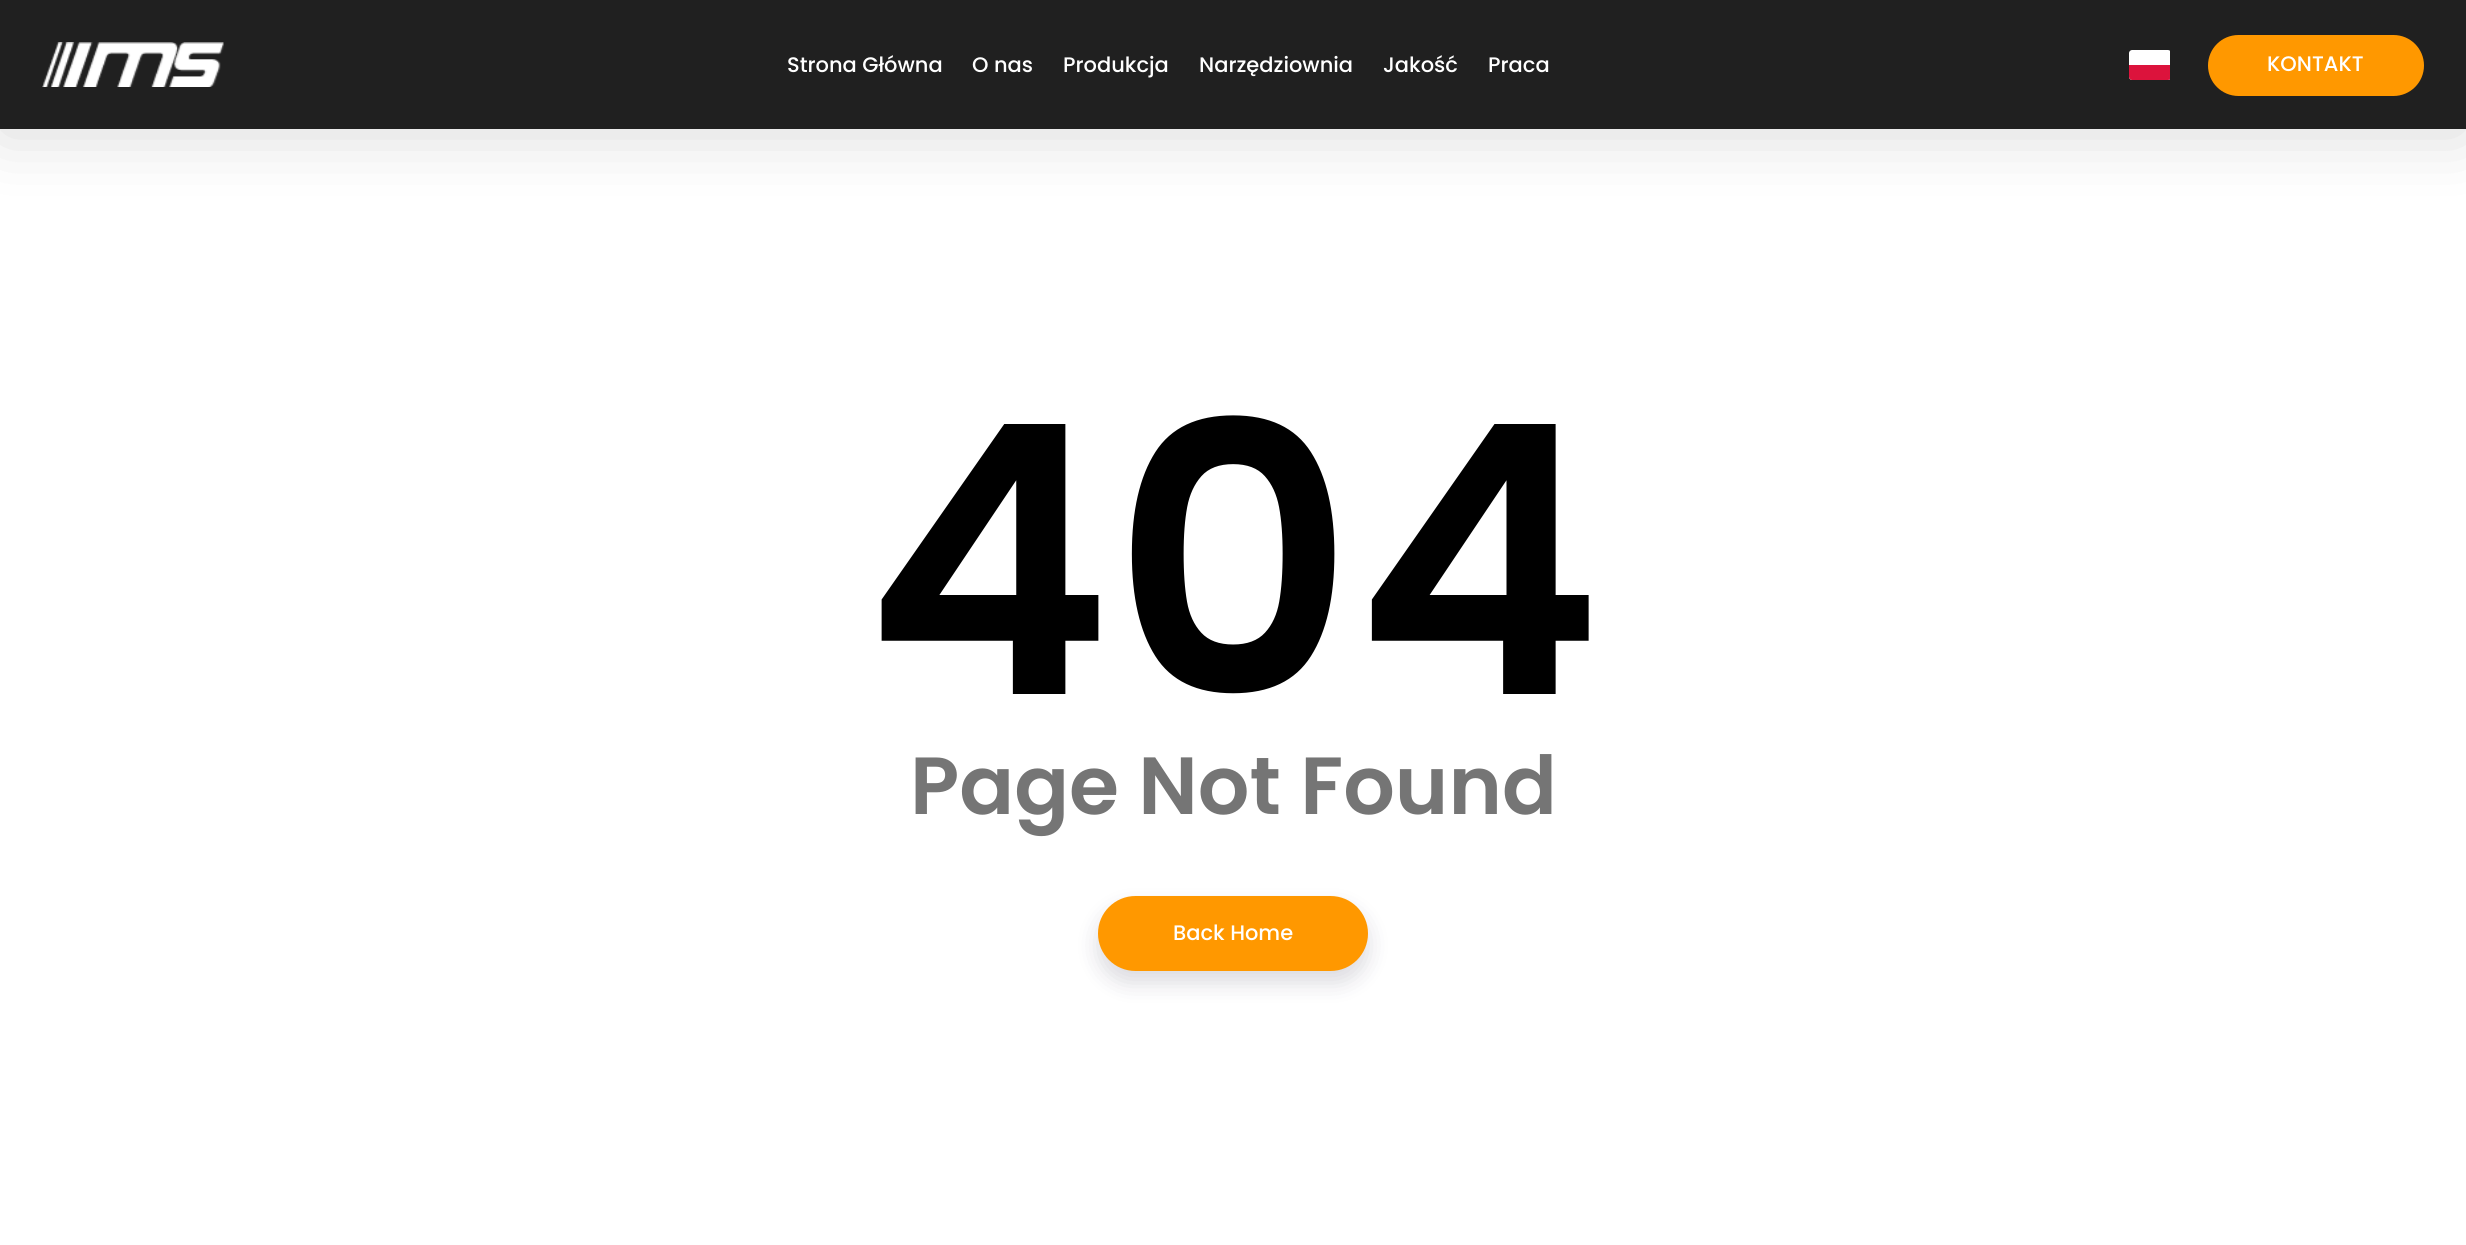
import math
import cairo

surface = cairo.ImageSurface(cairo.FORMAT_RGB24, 2466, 1245)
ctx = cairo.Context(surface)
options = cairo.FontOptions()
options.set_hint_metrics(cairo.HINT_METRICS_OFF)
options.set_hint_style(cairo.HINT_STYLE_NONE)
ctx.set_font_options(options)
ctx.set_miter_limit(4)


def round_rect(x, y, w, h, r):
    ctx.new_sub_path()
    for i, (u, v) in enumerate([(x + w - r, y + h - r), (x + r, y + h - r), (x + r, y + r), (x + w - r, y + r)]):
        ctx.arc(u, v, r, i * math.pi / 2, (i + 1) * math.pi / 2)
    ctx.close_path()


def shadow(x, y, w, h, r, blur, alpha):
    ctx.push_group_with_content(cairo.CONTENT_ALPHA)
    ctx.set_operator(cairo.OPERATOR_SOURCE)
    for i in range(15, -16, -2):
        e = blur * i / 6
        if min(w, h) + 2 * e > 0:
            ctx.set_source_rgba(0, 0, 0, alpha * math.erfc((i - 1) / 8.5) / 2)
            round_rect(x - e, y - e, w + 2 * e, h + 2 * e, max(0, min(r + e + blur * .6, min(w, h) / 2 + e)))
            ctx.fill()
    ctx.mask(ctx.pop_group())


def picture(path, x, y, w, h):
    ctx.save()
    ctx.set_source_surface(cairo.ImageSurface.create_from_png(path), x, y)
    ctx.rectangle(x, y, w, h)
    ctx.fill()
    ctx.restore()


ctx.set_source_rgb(1, 1, 1)
ctx.paint()
ctx.set_source_rgb(0, 0, 0)
shadow(0, 5, 2466, 129, 0, 34, 0.15)
ctx.set_source_rgb(0.125, 0.125, 0.125)
ctx.rectangle(0, 0, 2466, 129)
ctx.fill()
picture("img1.png", 42, 42, 182, 45)
ctx.select_font_face("Poppins Medium")
ctx.set_font_size(21)
ctx.set_source_rgb(1, 1, 1)
ctx.move_to(787, 72)
ctx.show_text("Strona Główna")
ctx.move_to(972, 72)
ctx.show_text("O nas")
ctx.move_to(1063, 72)
ctx.show_text("Produkcja")
ctx.move_to(1199, 72)
ctx.show_text("Narzędziownia")
ctx.move_to(1383, 72)
ctx.show_text("Jakość")
ctx.move_to(1488, 72)
ctx.show_text("Praca")
ctx.save()
round_rect(2129, 50, 42, 30, 3)
ctx.clip()
ctx.new_path()
ctx.move_to(2132, 50)
ctx.line_to(2170, 50)
ctx.line_to(2170, 80)
ctx.line_to(2132, 80)
ctx.curve_to(2130.5, 80, 2129, 78.5, 2129, 77)
ctx.line_to(2129, 53)
ctx.curve_to(2129, 51.5, 2130.5, 50, 2132, 50)
ctx.close_path()
ctx.fill()
ctx.set_source_rgb(0.863, 0.078, 0.235)
ctx.new_path()
ctx.move_to(2129, 65)
ctx.line_to(2170, 65)
ctx.line_to(2170, 80)
ctx.line_to(2132, 80)
ctx.curve_to(2130.5, 80, 2129, 78.5, 2129, 77)
ctx.close_path()
ctx.fill()
ctx.restore()
ctx.set_source_rgb(1, 0.596, 0)
round_rect(2208, 35, 216, 61, 30.5)
ctx.fill()
ctx.set_source_rgb(1, 1, 1)
ctx.move_to(2267, 71)
ctx.show_text("KONTAKT")
ctx.select_font_face("Poppins SemiBold")
ctx.set_font_size(375)
ctx.set_source_rgb(0, 0, 0)
ctx.move_to(864, 694)
ctx.show_text("404")
ctx.set_font_size(81)
ctx.set_source_rgb(0.459, 0.459, 0.459)
ctx.move_to(910, 814)
ctx.show_text("Page Not Found")
ctx.set_source_rgb(0.067, 0.047, 0.18)
shadow(1098, 908, 270, 75, 37.5, 11, 0.15)
ctx.set_source_rgb(1, 0.596, 0)
round_rect(1098, 896, 270, 75, 37.5)
ctx.fill()
ctx.select_font_face("Poppins Medium")
ctx.set_font_size(21)
ctx.set_source_rgb(1, 1, 1)
ctx.move_to(1173, 940)
ctx.show_text("Back Home")
surface.write_to_png("page.png")
